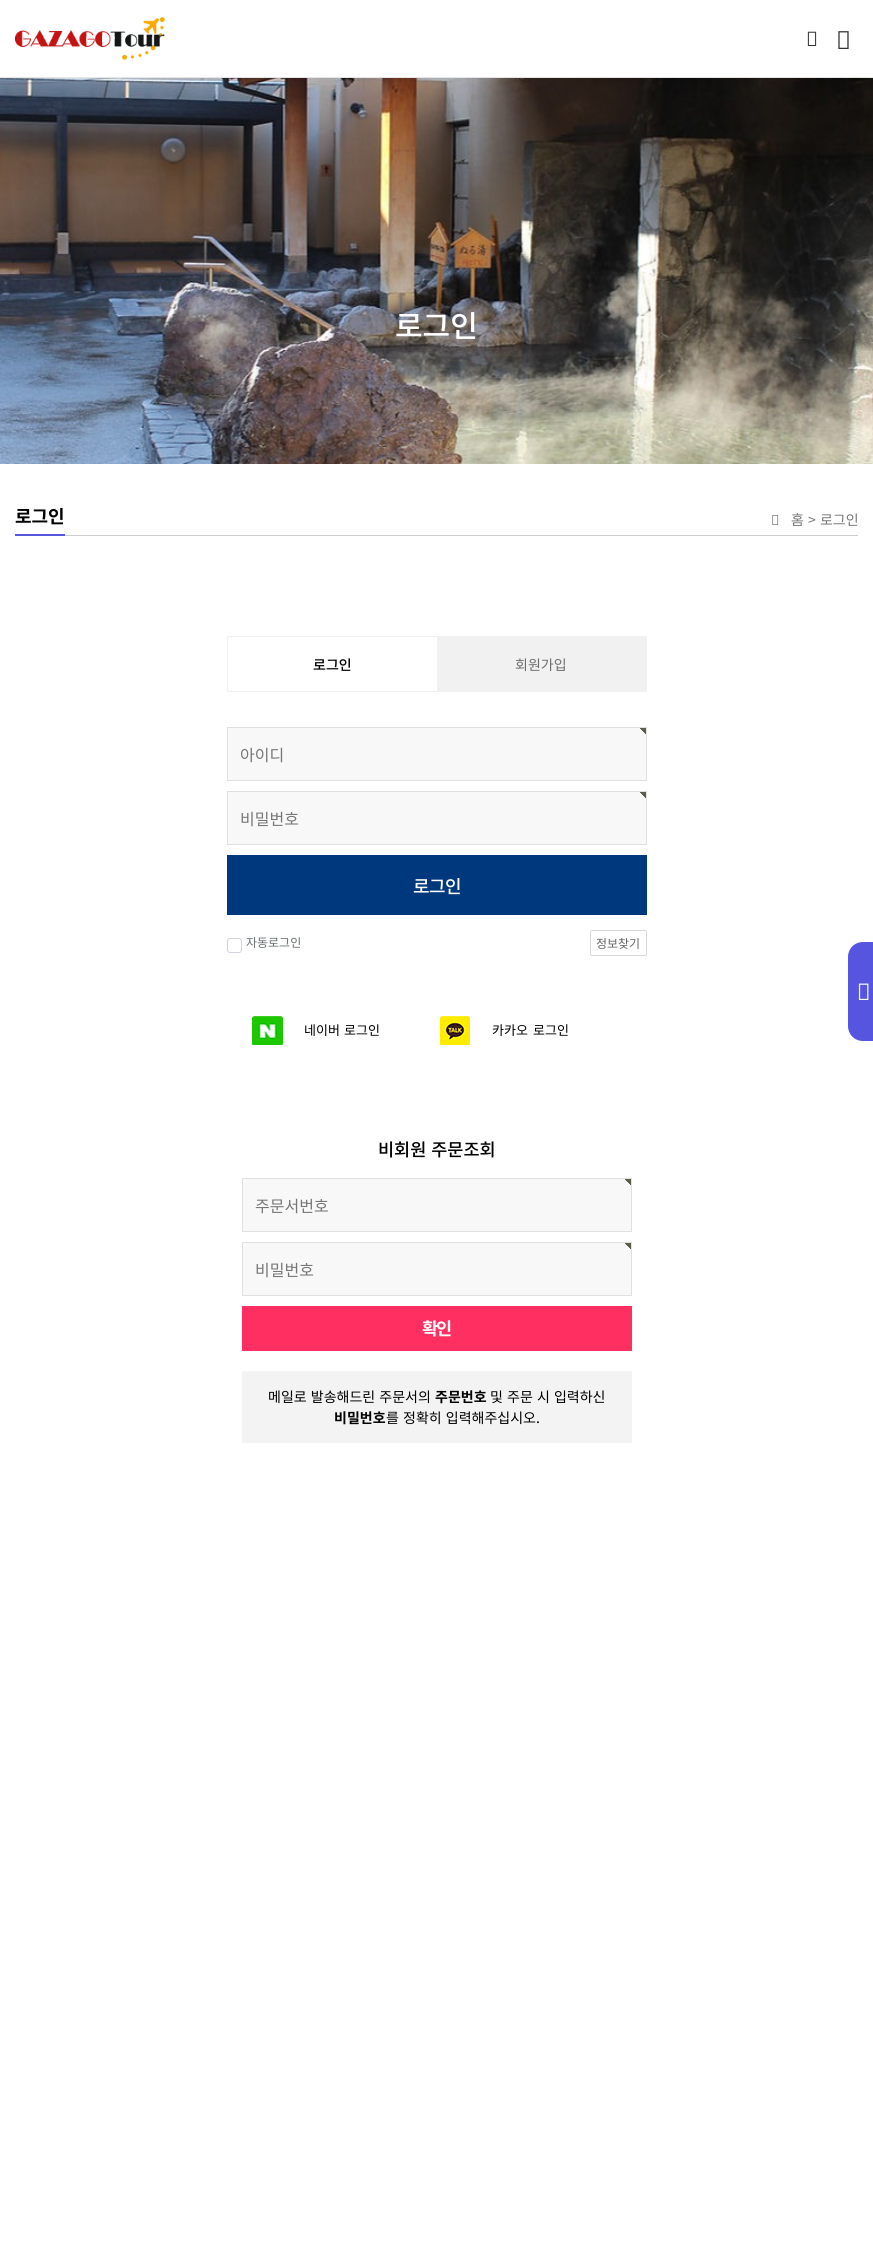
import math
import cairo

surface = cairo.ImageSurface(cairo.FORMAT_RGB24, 873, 2268)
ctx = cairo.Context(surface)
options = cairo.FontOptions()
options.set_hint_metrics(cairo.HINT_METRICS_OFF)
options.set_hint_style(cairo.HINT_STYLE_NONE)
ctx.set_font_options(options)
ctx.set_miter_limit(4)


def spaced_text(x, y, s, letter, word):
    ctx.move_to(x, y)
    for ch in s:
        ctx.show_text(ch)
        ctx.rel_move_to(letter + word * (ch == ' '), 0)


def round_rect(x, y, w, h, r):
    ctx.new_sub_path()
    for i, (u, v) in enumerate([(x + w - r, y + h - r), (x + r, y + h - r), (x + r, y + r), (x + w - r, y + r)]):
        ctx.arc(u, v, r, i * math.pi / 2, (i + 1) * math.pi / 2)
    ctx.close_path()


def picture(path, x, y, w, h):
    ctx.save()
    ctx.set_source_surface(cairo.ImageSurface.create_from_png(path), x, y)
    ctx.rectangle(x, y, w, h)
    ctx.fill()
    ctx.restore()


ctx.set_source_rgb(1, 1, 1)
ctx.paint()
ctx.set_source_rgb(0.898, 0.898, 0.898)
ctx.rectangle(0, 77, 873, 1)
ctx.fill()
picture("img1.png", 15, 16, 150, 45)
picture("img2.png", 807, 31, 10, 15)
picture("img3.png", 838, 31, 11, 18)
picture("img4.png", 0, 78, 873, 386)
ctx.select_font_face("Noto Sans KR Medium")
ctx.set_font_size(30)
ctx.set_source_rgb(1, 1, 1)
ctx.move_to(395, 337)
ctx.show_text("로그인")
ctx.set_source_rgb(0.8, 0.8, 0.8)
ctx.rectangle(65, 535, 793, 1)
ctx.fill()
ctx.set_source_rgb(0.333, 0.333, 0.878)
ctx.rectangle(15, 534, 50, 2)
ctx.fill()
ctx.select_font_face("Noto Sans KR", cairo.FONT_SLANT_NORMAL, cairo.FONT_WEIGHT_BOLD)
ctx.set_font_size(18)
ctx.set_source_rgb(0, 0, 0)
ctx.move_to(15, 523)
ctx.show_text("로그인")
picture("img5.png", 772, 515, 7, 10)
ctx.select_font_face("Noto Sans KR")
ctx.set_font_size(14)
ctx.set_source_rgb(0.467, 0.467, 0.467)
ctx.move_to(791, 525)
ctx.show_text("홈")
spaced_text(808, 525, "> 로그인", 0, 1)
ctx.rectangle(227.5, 636.5, 419, 55)
ctx.set_source_rgb(0.945, 0.945, 0.945)
ctx.set_line_width(1)
ctx.stroke()
ctx.select_font_face("Noto Sans KR Medium")
ctx.set_source_rgb(0, 0, 0)
ctx.move_to(313, 670)
ctx.show_text("로그인")
ctx.set_source_rgb(0.945, 0.945, 0.945)
ctx.rectangle(437, 637, 209, 54)
ctx.fill()
ctx.select_font_face("Noto Sans KR")
ctx.set_source_rgb(0.431, 0.431, 0.431)
ctx.move_to(515, 670)
ctx.show_text("회원가입")
ctx.set_source_rgb(0.969, 0.969, 0.969)
ctx.rectangle(228, 728, 418, 52)
ctx.fill()
picture("img6.png", 640, 728, 6, 6)
ctx.rectangle(227.5, 727.5, 419, 53)
ctx.set_source_rgb(0.878, 0.878, 0.878)
ctx.stroke()
ctx.set_font_size(16)
ctx.set_source_rgb(0.467, 0.467, 0.467)
ctx.move_to(240, 761)
ctx.show_text("아이디")
ctx.set_source_rgb(0.969, 0.969, 0.969)
ctx.rectangle(228, 792, 418, 52)
ctx.fill()
picture("img6.png", 640, 792, 6, 6)
ctx.rectangle(227.5, 791.5, 419, 53)
ctx.set_source_rgb(0.878, 0.878, 0.878)
ctx.stroke()
ctx.set_source_rgb(0.467, 0.467, 0.467)
ctx.move_to(240, 825)
ctx.show_text("비밀번호")
ctx.set_source_rgb(0, 0.22, 0.49)
ctx.rectangle(227, 855, 420, 60)
ctx.fill()
ctx.select_font_face("Noto Sans KR Medium")
ctx.set_font_size(18)
ctx.set_source_rgb(1, 1, 1)
spaced_text(413, 893, "로그인", -0.5, 0)
round_rect(227.5, 938.5, 14, 14, 2.5)
ctx.set_source_rgb(0.816, 0.831, 0.875)
ctx.stroke()
ctx.select_font_face("Noto Sans KR")
ctx.set_font_size(12)
ctx.set_source_rgb(0.404, 0.431, 0.439)
ctx.move_to(246, 947)
ctx.show_text("자동로그인")
round_rect(590.5, 930.5, 56, 25, 1.5)
ctx.set_source_rgb(0.835, 0.851, 0.867)
ctx.stroke()
ctx.set_source_rgb(0.4, 0.4, 0.4)
ctx.move_to(596, 948)
ctx.show_text("정보찾기")
picture("img7.png", 252, 1016, 31, 29)
ctx.set_font_size(13)
ctx.set_source_rgb(0, 0, 0)
ctx.move_to(304, 1035)
ctx.show_text("네이버")
ctx.move_to(344, 1035)
ctx.show_text("로그인")
picture("img8.png", 440, 1016, 30, 29)
ctx.move_to(492, 1035)
ctx.show_text("카카오")
ctx.move_to(533, 1035)
ctx.show_text("로그인")
ctx.select_font_face("Noto Sans KR Medium")
ctx.set_font_size(17.5)
spaced_text(378, 1156, "비회원 주문조회", 0, 1)
ctx.set_source_rgb(0.969, 0.969, 0.969)
ctx.rectangle(243, 1179, 388, 52)
ctx.fill()
picture("img6.png", 625, 1179, 6, 6)
ctx.rectangle(242.5, 1178.5, 389, 53)
ctx.set_source_rgb(0.878, 0.878, 0.878)
ctx.stroke()
ctx.select_font_face("Noto Sans KR")
ctx.set_font_size(16)
ctx.set_source_rgb(0.467, 0.467, 0.467)
ctx.move_to(255, 1212)
ctx.show_text("주문서번호")
ctx.set_source_rgb(0.969, 0.969, 0.969)
ctx.rectangle(243, 1243, 388, 52)
ctx.fill()
picture("img6.png", 625, 1243, 6, 6)
ctx.rectangle(242.5, 1242.5, 389, 53)
ctx.set_source_rgb(0.878, 0.878, 0.878)
ctx.stroke()
ctx.set_source_rgb(0.467, 0.467, 0.467)
ctx.move_to(255, 1276)
ctx.show_text("비밀번호")
ctx.set_source_rgb(1, 0.188, 0.38)
ctx.rectangle(242, 1306, 390, 45)
ctx.fill()
ctx.select_font_face("Noto Sans KR", cairo.FONT_SLANT_NORMAL, cairo.FONT_WEIGHT_BOLD)
ctx.set_font_size(17.5)
ctx.set_source_rgb(1, 1, 1)
spaced_text(422, 1335, "확인", -2, 0)
ctx.set_source_rgb(0.953, 0.953, 0.953)
ctx.rectangle(242, 1371, 390, 72)
ctx.fill()
ctx.select_font_face("Noto Sans KR")
ctx.set_font_size(14)
ctx.set_source_rgb(0, 0, 0)
spaced_text(268, 1402, "메일로 발송해드린 주문서의", 0, 1)
ctx.select_font_face("Noto Sans KR", cairo.FONT_SLANT_NORMAL, cairo.FONT_WEIGHT_BOLD)
ctx.move_to(435, 1402)
ctx.show_text("주문번호")
ctx.select_font_face("Noto Sans KR")
spaced_text(490, 1402, "및 주문 시 입력하신", 0, 1)
ctx.select_font_face("Noto Sans KR", cairo.FONT_SLANT_NORMAL, cairo.FONT_WEIGHT_BOLD)
ctx.move_to(334, 1423)
ctx.show_text("비밀번호")
ctx.select_font_face("Noto Sans KR")
spaced_text(386, 1423, "를 정확히 입력해주십시오.", 0, 1)
ctx.set_source_rgb(0.333, 0.333, 0.878)
ctx.new_path()
ctx.move_to(863, 942)
ctx.line_to(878, 942)
ctx.line_to(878, 1041)
ctx.line_to(863, 1041)
ctx.curve_to(854.5, 1041, 848, 1034.5, 848, 1026)
ctx.line_to(848, 957)
ctx.curve_to(848, 948.5, 854.5, 942, 863, 942)
ctx.close_path()
ctx.fill()
picture("img9.png", 858, 983, 11, 17)
surface.write_to_png("page.png")
